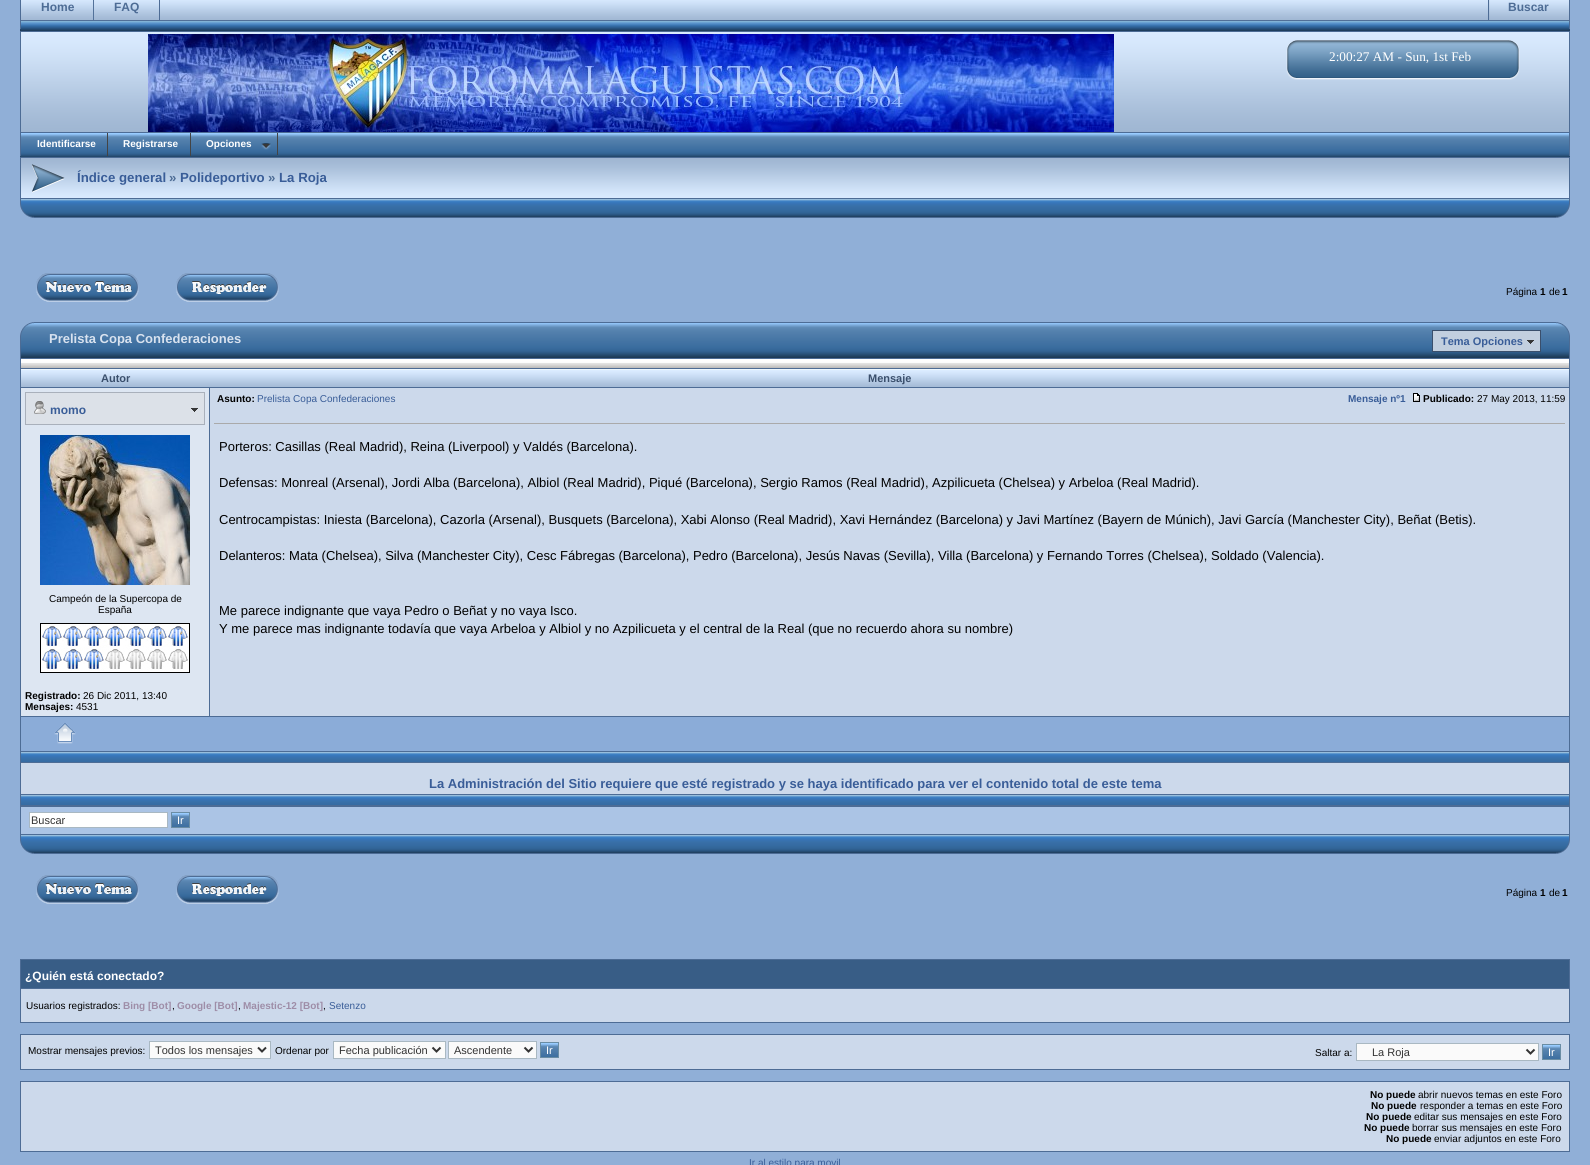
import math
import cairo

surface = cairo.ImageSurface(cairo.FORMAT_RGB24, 1590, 1165)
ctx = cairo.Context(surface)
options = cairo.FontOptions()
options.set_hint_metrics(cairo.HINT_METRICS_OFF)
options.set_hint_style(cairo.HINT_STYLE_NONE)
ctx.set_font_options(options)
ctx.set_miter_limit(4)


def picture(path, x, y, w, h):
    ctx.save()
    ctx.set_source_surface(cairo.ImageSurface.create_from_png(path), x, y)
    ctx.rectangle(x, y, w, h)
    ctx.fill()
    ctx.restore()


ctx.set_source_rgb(0.565, 0.686, 0.843)
ctx.paint()
picture("img1.png", 20, 0, 1550, 31)
ctx.set_source_rgb(0.325, 0.447, 0.604)
ctx.rectangle(93, 0, 1, 20)
ctx.fill()
ctx.set_source_rgb(0.302, 0.424, 0.584)
ctx.rectangle(20, 0, 1, 29)
ctx.fill()
ctx.select_font_face("Liberation Sans", cairo.FONT_SLANT_NORMAL, cairo.FONT_WEIGHT_BOLD)
ctx.set_font_size(12)
ctx.move_to(41, 11)
ctx.show_text("Home")
ctx.rectangle(159, 0, 1, 20)
ctx.fill()
ctx.move_to(114, 11)
ctx.show_text("FAQ")
picture("img2.png", 1488, 0, 2, 20)
ctx.rectangle(1569, 0, 1, 29)
ctx.fill()
ctx.move_to(1508, 11)
ctx.show_text("Buscar")
picture("img3.png", 21, 32, 1548, 100)
ctx.rectangle(20.5, 31.5, 1549, 101)
ctx.set_line_width(1)
ctx.stroke()
picture("img4.png", 148, 34, 966, 98)
picture("img5.png", 1286, 40, 234, 40)
ctx.select_font_face("Liberation Serif")
ctx.set_font_size(13.25)
ctx.set_source_rgb(1, 1, 1)
ctx.move_to(1329, 61)
ctx.show_text("2:00:27 AM - Sun, 1st Feb")
picture("img6.png", 20, 133, 1550, 24)
ctx.set_source_rgb(0.267, 0.267, 0.267)
ctx.rectangle(107, 133, 1, 23)
ctx.fill()
ctx.set_source_rgb(0.302, 0.424, 0.584)
ctx.rectangle(20, 133, 1, 23)
ctx.fill()
ctx.select_font_face("Liberation Sans", cairo.FONT_SLANT_NORMAL, cairo.FONT_WEIGHT_BOLD)
ctx.set_font_size(10)
ctx.set_source_rgb(1, 1, 1)
ctx.move_to(37, 147)
ctx.show_text("Identificarse")
ctx.set_source_rgb(0.267, 0.267, 0.267)
ctx.rectangle(190, 133, 1, 23)
ctx.fill()
ctx.set_source_rgb(1, 1, 1)
ctx.move_to(123, 147)
ctx.show_text("Registrarse")
picture("img7.png", 261, 143, 10, 7)
ctx.set_source_rgb(0.267, 0.267, 0.267)
ctx.rectangle(277, 133, 1, 22)
ctx.fill()
ctx.set_source_rgb(1, 1, 1)
ctx.move_to(206, 147)
ctx.show_text("Opciones")
ctx.set_source_rgb(0.302, 0.424, 0.584)
ctx.rectangle(1569, 133, 1, 23)
ctx.fill()
picture("img8.png", 21, 158, 50, 40)
ctx.rectangle(20, 157, 1550, 1)
ctx.fill()
ctx.rectangle(20, 198, 51, 1)
ctx.fill()
ctx.rectangle(20, 157, 1, 42)
ctx.fill()
picture("img9.png", 31, 164, 34, 29)
picture("img10.png", 71, 158, 1498, 40)
ctx.rectangle(1569, 157, 1, 42)
ctx.fill()
ctx.rectangle(71, 198, 1499, 1)
ctx.fill()
ctx.set_font_size(13.25)
ctx.set_source_rgb(0.224, 0.365, 0.596)
ctx.move_to(77, 182)
ctx.show_text("Índice general")
ctx.set_source_rgb(0.302, 0.424, 0.584)
ctx.move_to(169, 182)
ctx.show_text("»")
ctx.set_source_rgb(0.224, 0.365, 0.596)
ctx.move_to(180, 182)
ctx.show_text("Polideportivo")
ctx.set_source_rgb(0.302, 0.424, 0.584)
ctx.move_to(268, 182)
ctx.show_text("»")
ctx.set_source_rgb(0.224, 0.365, 0.596)
ctx.move_to(279, 182)
ctx.show_text("La Roja")
picture("img11.png", 20, 199, 27, 19)
picture("img12.png", 1543, 199, 27, 19)
picture("img13.png", 47, 199, 1496, 19)
picture("img14.png", 36, 273, 103, 29)
picture("img15.png", 176, 273, 103, 29)
ctx.select_font_face("Liberation Sans")
ctx.set_font_size(10)
ctx.set_source_rgb(0, 0, 0)
ctx.move_to(1506, 295)
ctx.show_text("Página")
ctx.select_font_face("Liberation Sans", cairo.FONT_SLANT_NORMAL, cairo.FONT_WEIGHT_BOLD)
ctx.move_to(1540, 295)
ctx.show_text("1")
ctx.select_font_face("Liberation Sans")
ctx.move_to(1549, 295)
ctx.show_text("de")
ctx.select_font_face("Liberation Sans", cairo.FONT_SLANT_NORMAL, cairo.FONT_WEIGHT_BOLD)
ctx.move_to(1562, 295)
ctx.show_text("1")
picture("img16.png", 20, 322, 27, 46)
picture("img17.png", 1543, 322, 27, 46)
picture("img18.png", 47, 322, 1496, 46)
ctx.set_font_size(13)
ctx.set_source_rgb(0.847, 0.886, 0.937)
ctx.move_to(49, 343)
ctx.show_text("Prelista Copa Confederaciones")
ctx.set_source_rgb(0.761, 0.812, 0.875)
ctx.rectangle(1433, 331, 107, 20)
ctx.fill()
picture("img19.png", 1527, 340, 7, 4)
ctx.rectangle(1432.5, 330.5, 108, 21)
ctx.set_source_rgb(0.227, 0.31, 0.424)
ctx.stroke()
ctx.set_font_size(11)
ctx.set_source_rgb(0.224, 0.365, 0.596)
ctx.move_to(1441, 345)
ctx.show_text("Tema Opciones")
ctx.set_source_rgb(0.302, 0.424, 0.584)
ctx.rectangle(1569, 368, 1, 467)
ctx.fill()
ctx.rectangle(20, 762, 1550, 1)
ctx.fill()
ctx.rectangle(20, 368, 1, 395)
ctx.fill()
picture("img20.png", 21, 369, 189, 18)
ctx.rectangle(21, 368, 1548, 1)
ctx.fill()
ctx.rectangle(21, 387, 1548, 1)
ctx.fill()
ctx.set_source_rgb(0.227, 0.31, 0.424)
ctx.move_to(101, 382)
ctx.show_text("Autor")
picture("img21.png", 210, 369, 1359, 18)
ctx.move_to(868, 382)
ctx.show_text("Mensaje")
ctx.set_source_rgb(0.8, 0.851, 0.918)
ctx.rectangle(210, 388, 1359, 328)
ctx.fill()
ctx.set_font_size(10)
ctx.set_source_rgb(0, 0, 0)
ctx.move_to(217, 402)
ctx.show_text("Asunto:")
ctx.select_font_face("Liberation Sans")
ctx.set_source_rgb(0.224, 0.365, 0.596)
ctx.move_to(257, 402)
ctx.show_text("Prelista Copa Confederaciones")
ctx.select_font_face("Liberation Sans", cairo.FONT_SLANT_NORMAL, cairo.FONT_WEIGHT_BOLD)
ctx.move_to(1348, 402)
ctx.show_text("Mensaje nº1")
picture("img22.png", 1413, 393, 7, 9)
ctx.set_source_rgb(0, 0, 0)
ctx.move_to(1423, 402)
ctx.show_text("Publicado:")
ctx.select_font_face("Liberation Sans")
ctx.move_to(1477, 402)
ctx.show_text("27 May 2013, 11:59")
ctx.set_source_rgb(0.667, 0.667, 0.667)
ctx.rectangle(214, 423, 1351, 1)
ctx.fill()
ctx.set_source_rgb(0.867, 0.902, 0.949)
ctx.rectangle(21, 388, 188, 328)
ctx.fill()
ctx.set_source_rgb(0.302, 0.424, 0.584)
ctx.rectangle(209, 388, 1, 328)
ctx.fill()
ctx.set_source_rgb(0.863, 0.882, 0.91)
ctx.rectangle(26, 393, 178, 31)
ctx.fill()
picture("img23.png", 191, 408, 7, 4)
ctx.rectangle(25.5, 392.5, 179, 32)
ctx.set_source_rgb(0.663, 0.69, 0.733)
ctx.stroke()
picture("img24.png", 34, 401, 12, 13)
ctx.select_font_face("Liberation Sans", cairo.FONT_SLANT_NORMAL, cairo.FONT_WEIGHT_BOLD)
ctx.set_font_size(12)
ctx.set_source_rgb(0.224, 0.365, 0.596)
ctx.move_to(50, 414)
ctx.show_text("momo")
ctx.select_font_face("Liberation Sans")
ctx.set_font_size(13)
ctx.set_source_rgb(0, 0, 0)
ctx.move_to(219, 451)
ctx.show_text("Porteros: Casillas (Real Madrid), Reina (Liverpool) y Valdés (Barcelona).")
ctx.move_to(219, 487)
ctx.show_text("Defensas: Monreal (Arsenal), Jordi Alba (Barcelona), Albiol (Real Madrid), Piqué (Barcelona), Sergio Ramos (Real Madrid), Azpilicueta (Chelsea) y Arbeloa (Real Madrid).")
ctx.move_to(219, 524)
ctx.show_text("Centrocampistas: Iniesta (Barcelona), Cazorla (Arsenal), Busquets (Barcelona), Xabi Alonso (Real Madrid), Xavi Hernández (Barcelona) y Javi Martínez (Bayern de Múnich), Javi García (Manchester City), Beñat (Betis).")
ctx.move_to(219, 560)
ctx.show_text("Delanteros: Mata (Chelsea), Silva (Manchester City), Cesc Fábregas (Barcelona), Pedro (Barcelona), Jesús Navas (Sevilla), Villa (Barcelona) y Fernando Torres (Chelsea), Soldado (Valencia).")
ctx.move_to(219, 615)
ctx.show_text("Me parece indignante que vaya Pedro o Beñat y no vaya Isco.")
ctx.move_to(219, 633)
ctx.show_text("Y me parece mas indignante todavía que vaya Arbeloa y Albiol y no Azpilicueta y el central de la Real (que no recuerdo ahora su nombre)")
picture("img25.png", 40, 435, 150, 150)
ctx.set_font_size(10)
ctx.move_to(49, 602)
ctx.show_text("Campeón de la Supercopa de")
ctx.move_to(98, 613)
ctx.show_text("España")
picture("img26.png", 40, 623, 150, 50)
ctx.select_font_face("Liberation Sans", cairo.FONT_SLANT_NORMAL, cairo.FONT_WEIGHT_BOLD)
ctx.move_to(25, 699)
ctx.show_text("Registrado:")
ctx.select_font_face("Liberation Sans")
ctx.move_to(83, 699)
ctx.show_text("26 Dic 2011, 13:40")
ctx.select_font_face("Liberation Sans", cairo.FONT_SLANT_NORMAL, cairo.FONT_WEIGHT_BOLD)
ctx.move_to(25, 710)
ctx.show_text("Mensajes:")
ctx.select_font_face("Liberation Sans")
ctx.move_to(76, 710)
ctx.show_text("4531")
ctx.set_source_rgb(0.545, 0.675, 0.847)
ctx.rectangle(21, 717, 1548, 34)
ctx.fill()
ctx.set_source_rgb(0.302, 0.424, 0.584)
ctx.rectangle(21, 716, 1548, 1)
ctx.fill()
picture("img27.png", 54, 723, 22, 21)
picture("img28.png", 21, 751, 1548, 11)
ctx.rectangle(20, 805, 1550, 1)
ctx.fill()
ctx.rectangle(20, 763, 1, 43)
ctx.fill()
ctx.set_source_rgb(0.8, 0.851, 0.918)
ctx.rectangle(21, 763, 1548, 31)
ctx.fill()
ctx.select_font_face("Liberation Sans", cairo.FONT_SLANT_NORMAL, cairo.FONT_WEIGHT_BOLD)
ctx.set_font_size(13)
ctx.set_source_rgb(0.224, 0.365, 0.596)
ctx.move_to(429, 788)
ctx.show_text("La Administración del Sitio requiere que esté registrado y se haya identificado para ver el contenido total de este tema")
picture("img28.png", 21, 794, 1548, 11)
ctx.set_source_rgb(0.302, 0.424, 0.584)
ctx.rectangle(20, 834, 1550, 1)
ctx.fill()
ctx.rectangle(20, 806, 1, 29)
ctx.fill()
ctx.set_source_rgb(0.671, 0.769, 0.898)
ctx.rectangle(21, 807, 1548, 27)
ctx.fill()
ctx.set_source_rgb(0.302, 0.424, 0.584)
ctx.rectangle(21, 806, 1548, 1)
ctx.fill()
ctx.set_source_rgb(1, 1, 1)
ctx.rectangle(29.5, 812.5, 138, 15)
ctx.fill_preserve()
ctx.set_source_rgb(0.663, 0.722, 0.761)
ctx.stroke()
ctx.select_font_face("Liberation Sans")
ctx.set_font_size(11)
ctx.set_source_rgb(0.2, 0.2, 0.2)
ctx.move_to(31, 824)
ctx.show_text("Buscar")
picture("img29.png", 172, 813, 17, 14)
ctx.rectangle(171.5, 812.5, 18, 15)
ctx.set_source_rgb(0.416, 0.553, 0.643)
ctx.stroke()
ctx.set_source_rgb(1, 1, 1)
ctx.move_to(177, 824)
ctx.show_text("Ir")
picture("img11.png", 20, 835, 27, 19)
picture("img12.png", 1543, 835, 27, 19)
picture("img13.png", 47, 835, 1496, 19)
picture("img14.png", 36, 875, 103, 29)
picture("img15.png", 176, 875, 103, 29)
ctx.set_font_size(10)
ctx.set_source_rgb(0, 0, 0)
ctx.move_to(1506, 896)
ctx.show_text("Página")
ctx.select_font_face("Liberation Sans", cairo.FONT_SLANT_NORMAL, cairo.FONT_WEIGHT_BOLD)
ctx.move_to(1540, 896)
ctx.show_text("1")
ctx.select_font_face("Liberation Sans")
ctx.move_to(1549, 896)
ctx.show_text("de")
ctx.select_font_face("Liberation Sans", cairo.FONT_SLANT_NORMAL, cairo.FONT_WEIGHT_BOLD)
ctx.move_to(1562, 896)
ctx.show_text("1")
ctx.set_source_rgb(0.302, 0.424, 0.584)
ctx.rectangle(1569, 959, 1, 64)
ctx.fill()
ctx.rectangle(20, 1022, 1550, 1)
ctx.fill()
ctx.rectangle(20, 959, 1, 64)
ctx.fill()
ctx.set_source_rgb(0.22, 0.365, 0.525)
ctx.rectangle(21, 960, 1548, 28)
ctx.fill()
ctx.set_source_rgb(0.302, 0.424, 0.584)
ctx.rectangle(21, 959, 1548, 1)
ctx.fill()
ctx.rectangle(21, 988, 1548, 1)
ctx.fill()
ctx.set_font_size(12)
ctx.set_source_rgb(1, 1, 1)
ctx.move_to(25, 980)
ctx.show_text("¿Quién está conectado?")
ctx.set_source_rgb(0.8, 0.851, 0.918)
ctx.rectangle(21, 989, 1548, 33)
ctx.fill()
ctx.select_font_face("Liberation Sans")
ctx.set_font_size(10)
ctx.set_source_rgb(0, 0, 0)
ctx.move_to(26, 1009)
ctx.show_text("Usuarios registrados:")
ctx.select_font_face("Liberation Sans", cairo.FONT_SLANT_NORMAL, cairo.FONT_WEIGHT_BOLD)
ctx.set_source_rgb(0.62, 0.553, 0.655)
ctx.move_to(123, 1009)
ctx.show_text("Bing [Bot]")
ctx.select_font_face("Liberation Sans")
ctx.set_source_rgb(0, 0, 0)
ctx.move_to(172, 1009)
ctx.show_text(",")
ctx.select_font_face("Liberation Sans", cairo.FONT_SLANT_NORMAL, cairo.FONT_WEIGHT_BOLD)
ctx.set_source_rgb(0.62, 0.553, 0.655)
ctx.move_to(177, 1009)
ctx.show_text("Google [Bot]")
ctx.select_font_face("Liberation Sans")
ctx.set_source_rgb(0, 0, 0)
ctx.move_to(238, 1009)
ctx.show_text(",")
ctx.select_font_face("Liberation Sans", cairo.FONT_SLANT_NORMAL, cairo.FONT_WEIGHT_BOLD)
ctx.set_source_rgb(0.62, 0.553, 0.655)
ctx.move_to(243, 1009)
ctx.show_text("Majestic-12 [Bot]")
ctx.select_font_face("Liberation Sans")
ctx.set_source_rgb(0, 0, 0)
ctx.move_to(323, 1009)
ctx.show_text(",")
ctx.set_source_rgb(0.224, 0.365, 0.596)
ctx.move_to(329, 1009)
ctx.show_text("Setenzo")
ctx.rectangle(20.5, 1034.5, 1549, 35)
ctx.set_source_rgb(0.302, 0.424, 0.584)
ctx.stroke()
ctx.set_source_rgb(0.8, 0.851, 0.918)
ctx.rectangle(21, 1035, 1548, 34)
ctx.fill()
ctx.set_source_rgb(0, 0, 0)
ctx.move_to(28, 1054)
ctx.show_text("Mostrar mensajes previos:")
ctx.set_source_rgb(0.98, 0.98, 0.98)
ctx.rectangle(149.5, 1041.5, 121, 17)
ctx.fill_preserve()
ctx.set_source_rgb(0.663, 0.722, 0.761)
ctx.stroke()
ctx.new_path()
ctx.move_to(258, 1047.5)
ctx.line_to(262, 1051.5)
ctx.line_to(266, 1047.5)
ctx.set_source_rgb(0.2, 0.2, 0.2)
ctx.set_line_width(2)
ctx.stroke()
ctx.set_font_size(11)
ctx.move_to(155, 1054)
ctx.show_text("Todos los mensajes")
ctx.set_font_size(10)
ctx.set_source_rgb(0, 0, 0)
ctx.move_to(275, 1054)
ctx.show_text("Ordenar por")
ctx.set_source_rgb(0.98, 0.98, 0.98)
ctx.rectangle(333.5, 1041.5, 112, 17)
ctx.fill_preserve()
ctx.set_source_rgb(0.663, 0.722, 0.761)
ctx.set_line_width(1)
ctx.stroke()
ctx.new_path()
ctx.move_to(432.5, 1047.5)
ctx.line_to(436.5, 1051.5)
ctx.line_to(440.5, 1047.5)
ctx.set_source_rgb(0.2, 0.2, 0.2)
ctx.set_line_width(2)
ctx.stroke()
ctx.set_font_size(11)
ctx.move_to(339, 1054)
ctx.show_text("Fecha publicación")
ctx.set_source_rgb(0.98, 0.98, 0.98)
ctx.rectangle(448.5, 1041.5, 88, 17)
ctx.fill_preserve()
ctx.set_source_rgb(0.663, 0.722, 0.761)
ctx.set_line_width(1)
ctx.stroke()
ctx.new_path()
ctx.move_to(524.5, 1047.5)
ctx.line_to(528.5, 1051.5)
ctx.line_to(532.5, 1047.5)
ctx.set_source_rgb(0.2, 0.2, 0.2)
ctx.set_line_width(2)
ctx.stroke()
ctx.move_to(454, 1054)
ctx.show_text("Ascendente")
picture("img29.png", 541, 1043, 17, 14)
ctx.rectangle(540.5, 1042.5, 18, 15)
ctx.set_source_rgb(0.416, 0.553, 0.643)
ctx.set_line_width(1)
ctx.stroke()
ctx.set_source_rgb(1, 1, 1)
ctx.move_to(546, 1054)
ctx.show_text("Ir")
ctx.set_font_size(10)
ctx.set_source_rgb(0, 0, 0)
ctx.move_to(1315, 1056)
ctx.show_text("Saltar a:")
ctx.set_source_rgb(0.98, 0.98, 0.98)
ctx.rectangle(1356.5, 1043.5, 182, 17)
ctx.fill_preserve()
ctx.set_source_rgb(0.663, 0.722, 0.761)
ctx.stroke()
ctx.new_path()
ctx.move_to(1526.5, 1049.5)
ctx.line_to(1530.5, 1053.5)
ctx.line_to(1534.5, 1049.5)
ctx.set_source_rgb(0.2, 0.2, 0.2)
ctx.set_line_width(2)
ctx.stroke()
ctx.set_font_size(11)
ctx.move_to(1372, 1056)
ctx.show_text("La Roja")
picture("img29.png", 1543, 1045, 17, 14)
ctx.rectangle(1542.5, 1044.5, 18, 15)
ctx.set_source_rgb(0.416, 0.553, 0.643)
ctx.set_line_width(1)
ctx.stroke()
ctx.set_source_rgb(1, 1, 1)
ctx.move_to(1548, 1056)
ctx.show_text("Ir")
ctx.rectangle(20.5, 1081.5, 1549, 70)
ctx.set_source_rgb(0.302, 0.424, 0.584)
ctx.stroke()
ctx.set_source_rgb(0.8, 0.851, 0.918)
ctx.rectangle(21, 1082, 1548, 69)
ctx.fill()
ctx.select_font_face("Liberation Sans", cairo.FONT_SLANT_NORMAL, cairo.FONT_WEIGHT_BOLD)
ctx.set_font_size(10)
ctx.set_source_rgb(0, 0, 0)
ctx.move_to(1370, 1098)
ctx.show_text("No puede")
ctx.select_font_face("Liberation Sans")
ctx.move_to(1418, 1098)
ctx.show_text("abrir nuevos temas en este Foro")
ctx.select_font_face("Liberation Sans", cairo.FONT_SLANT_NORMAL, cairo.FONT_WEIGHT_BOLD)
ctx.move_to(1371, 1109)
ctx.show_text("No puede")
ctx.select_font_face("Liberation Sans")
ctx.move_to(1420, 1109)
ctx.show_text("responder a temas en este Foro")
ctx.select_font_face("Liberation Sans", cairo.FONT_SLANT_NORMAL, cairo.FONT_WEIGHT_BOLD)
ctx.move_to(1366, 1120)
ctx.show_text("No puede")
ctx.select_font_face("Liberation Sans")
ctx.move_to(1414, 1120)
ctx.show_text("editar sus mensajes en este Foro")
ctx.select_font_face("Liberation Sans", cairo.FONT_SLANT_NORMAL, cairo.FONT_WEIGHT_BOLD)
ctx.move_to(1364, 1131)
ctx.show_text("No puede")
ctx.select_font_face("Liberation Sans")
ctx.move_to(1412, 1131)
ctx.show_text("borrar sus mensajes en este Foro")
ctx.select_font_face("Liberation Sans", cairo.FONT_SLANT_NORMAL, cairo.FONT_WEIGHT_BOLD)
ctx.move_to(1386, 1142)
ctx.show_text("No puede")
ctx.select_font_face("Liberation Sans")
ctx.move_to(1434, 1142)
ctx.show_text("enviar adjuntos en este Foro")
ctx.set_source_rgb(0.224, 0.365, 0.596)
ctx.move_to(749, 1166)
ctx.show_text("Ir al estilo para movil")
surface.write_to_png("page.png")
